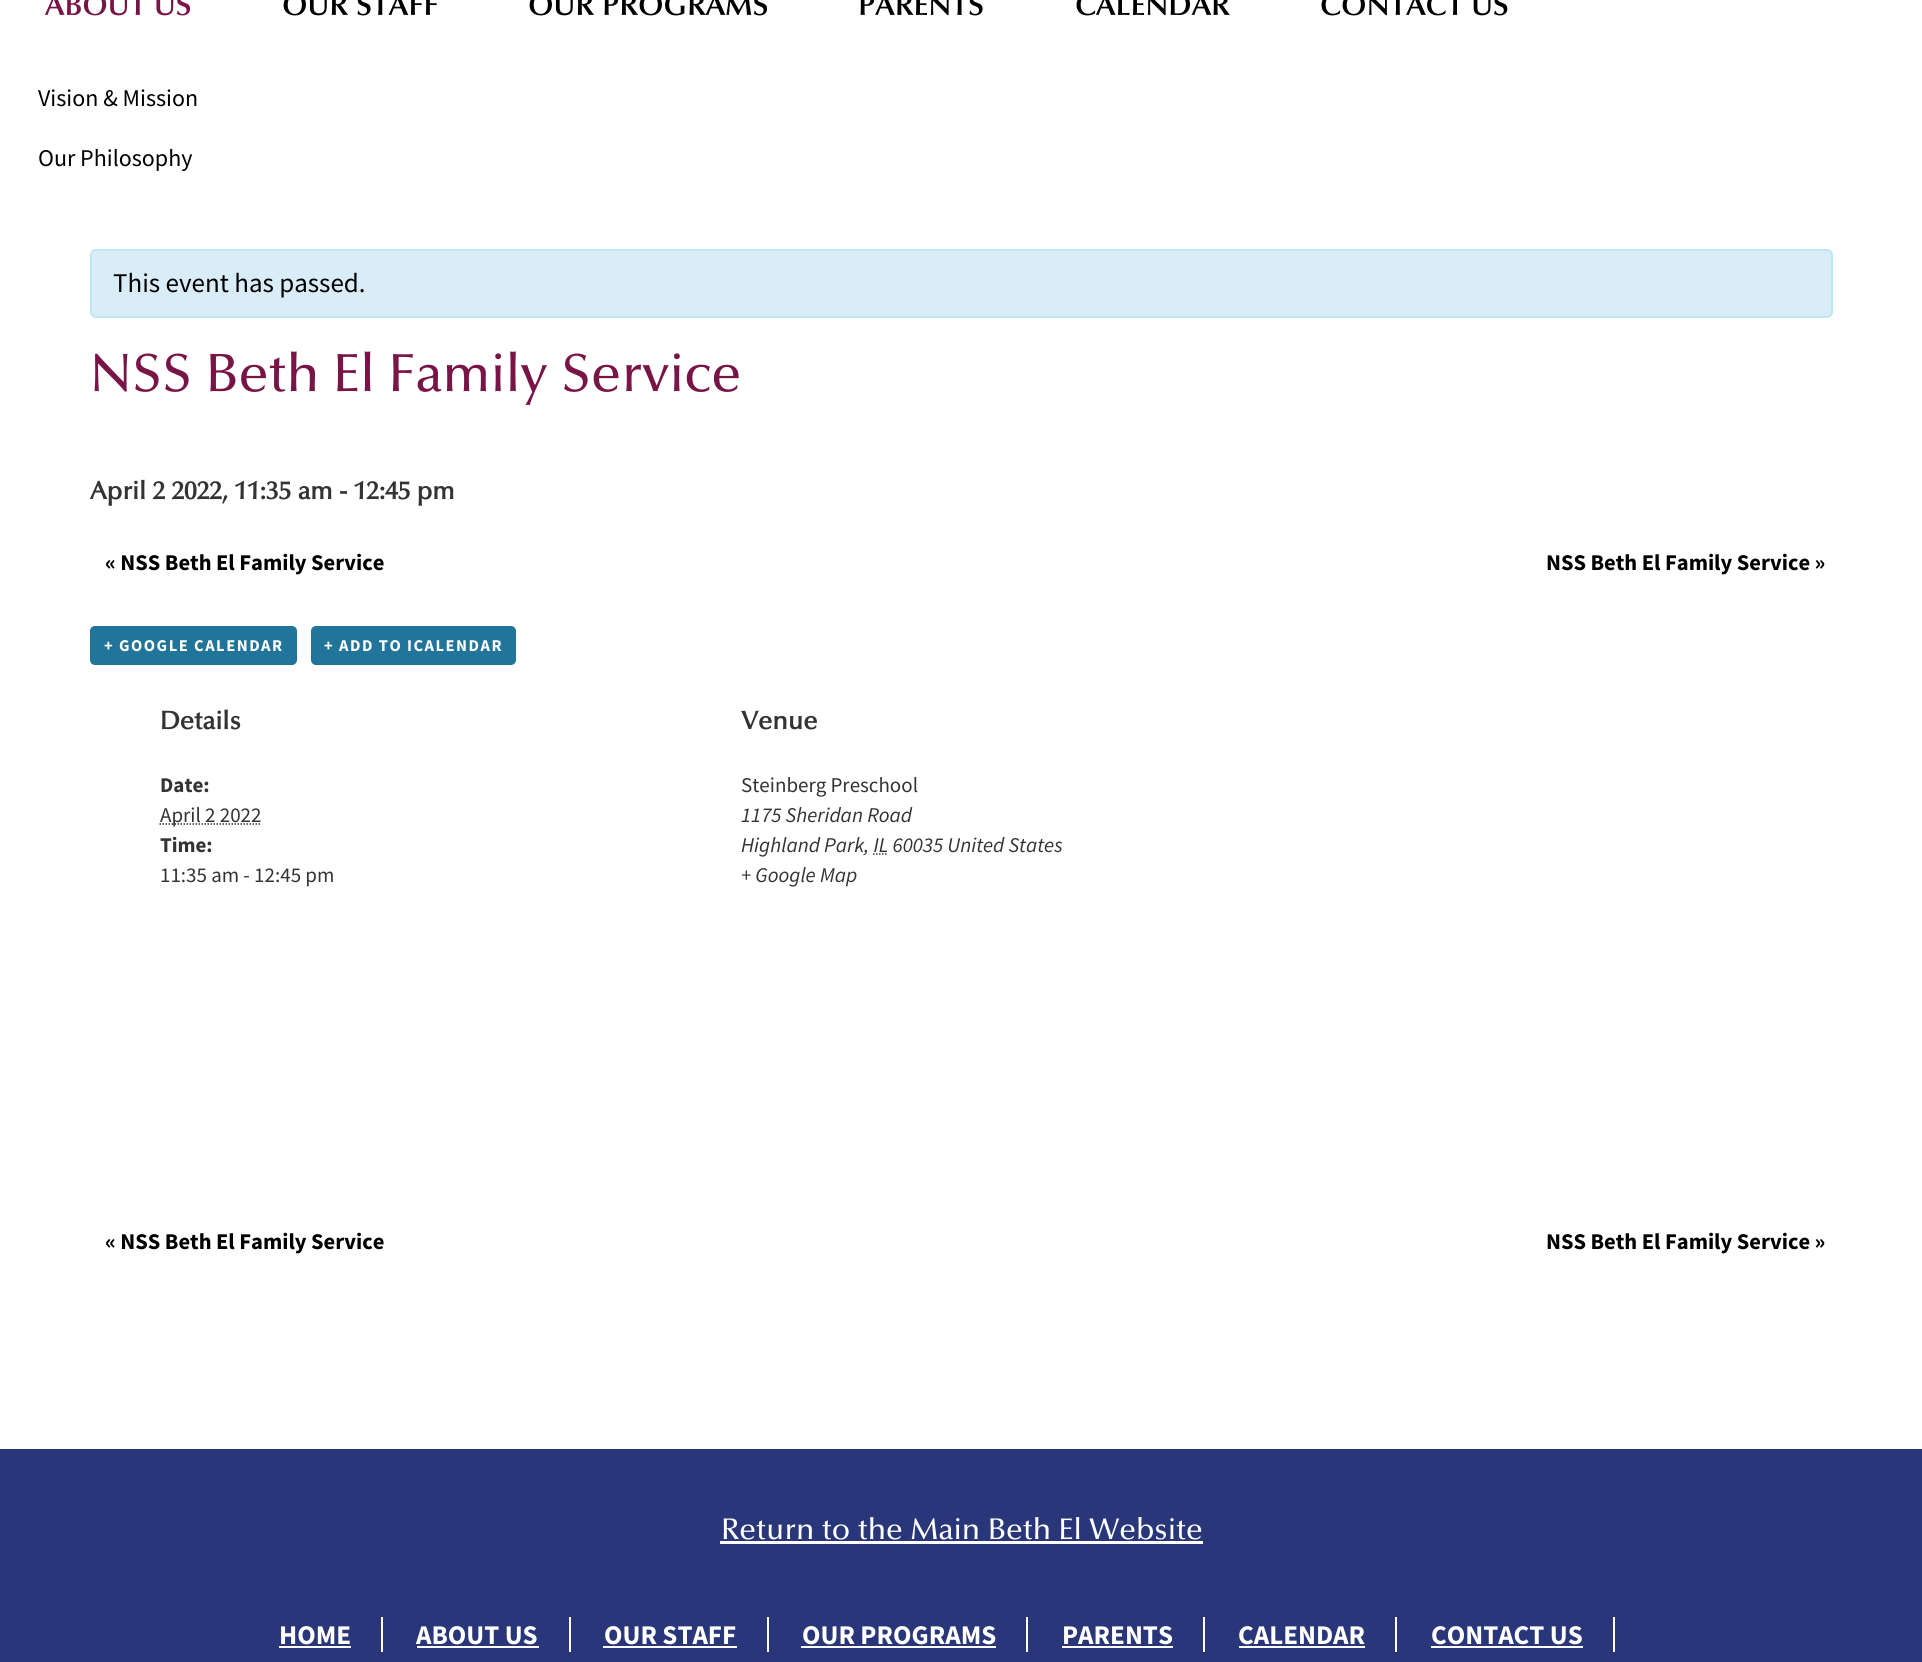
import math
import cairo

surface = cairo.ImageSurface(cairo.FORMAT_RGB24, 1922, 1662)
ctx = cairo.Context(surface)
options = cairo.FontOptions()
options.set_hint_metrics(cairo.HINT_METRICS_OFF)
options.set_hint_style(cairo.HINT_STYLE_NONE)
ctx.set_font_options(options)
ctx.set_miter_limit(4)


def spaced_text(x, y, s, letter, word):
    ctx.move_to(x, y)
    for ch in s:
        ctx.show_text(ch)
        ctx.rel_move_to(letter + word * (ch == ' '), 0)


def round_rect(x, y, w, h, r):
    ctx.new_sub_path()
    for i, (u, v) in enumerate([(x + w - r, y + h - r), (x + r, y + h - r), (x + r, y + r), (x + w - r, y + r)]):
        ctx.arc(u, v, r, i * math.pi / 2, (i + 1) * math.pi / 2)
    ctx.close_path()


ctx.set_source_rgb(0.161, 0.212, 0.475)
ctx.paint()
ctx.set_source_rgb(1, 1, 1)
ctx.rectangle(0, 0, 1922, 1449)
ctx.fill()
ctx.select_font_face("Optima SemiBold")
ctx.set_font_size(30)
ctx.set_source_rgb(0.475, 0.082, 0.278)
ctx.move_to(45, 15)
ctx.show_text("ABOUT US")
ctx.select_font_face("Source Sans Pro")
ctx.set_font_size(24)
ctx.set_source_rgb(0, 0, 0)
ctx.move_to(38, 106)
ctx.show_text("Vision & Mission")
ctx.move_to(38, 166)
ctx.show_text("Our Philosophy")
ctx.select_font_face("Optima SemiBold")
ctx.set_font_size(30)
ctx.move_to(282, 15)
ctx.show_text("OUR STAFF")
ctx.move_to(528, 15)
ctx.show_text("OUR PROGRAMS")
ctx.move_to(858, 15)
ctx.show_text("PARENTS")
ctx.move_to(1075, 15)
ctx.show_text("CALENDAR")
ctx.move_to(1320, 15)
ctx.show_text("CONTACT US")
ctx.set_source_rgb(0.851, 0.929, 0.969)
round_rect(91, 250, 1741, 67, 5)
ctx.fill_preserve()
ctx.set_source_rgb(0.737, 0.91, 0.945)
ctx.stroke()
ctx.select_font_face("Source Sans Pro")
ctx.set_font_size(27)
ctx.set_source_rgb(0, 0, 0)
ctx.move_to(113, 292)
ctx.show_text("This event has passed.")
ctx.select_font_face("Optima Medium")
ctx.set_font_size(54)
ctx.set_source_rgb(0.475, 0.082, 0.278)
ctx.move_to(90, 391)
ctx.show_text("NSS Beth El Family Service")
ctx.select_font_face("Optima", cairo.FONT_SLANT_NORMAL, cairo.FONT_WEIGHT_BOLD)
ctx.set_font_size(25.25)
ctx.set_source_rgb(0.2, 0.2, 0.2)
ctx.move_to(90, 499)
ctx.show_text("April 2 2022, 11:35 am - 12:45 pm")
ctx.select_font_face("Source Sans Pro", cairo.FONT_SLANT_NORMAL, cairo.FONT_WEIGHT_BOLD)
ctx.set_font_size(22.5)
ctx.set_source_rgb(0, 0, 0)
ctx.move_to(105, 570)
ctx.show_text("« NSS Beth El Family Service")
ctx.move_to(1546, 570)
ctx.show_text("NSS Beth El Family Service »")
ctx.set_source_rgb(0.129, 0.459, 0.608)
round_rect(90, 626, 207, 39, 5)
ctx.fill()
ctx.set_font_size(16.5)
ctx.set_source_rgb(1, 1, 1)
spaced_text(104, 651, "+ GOOGLE CALENDAR", 1.5, 0)
ctx.set_source_rgb(0.129, 0.459, 0.608)
round_rect(311, 626, 205, 39, 5)
ctx.fill()
ctx.set_source_rgb(1, 1, 1)
spaced_text(324, 651, "+ ADD TO ICALENDAR", 1.5, 0)
ctx.select_font_face("Optima", cairo.FONT_SLANT_NORMAL, cairo.FONT_WEIGHT_BOLD)
ctx.set_font_size(25.5)
ctx.set_source_rgb(0.2, 0.2, 0.2)
ctx.move_to(160, 729)
ctx.show_text("Details")
ctx.select_font_face("Source Sans Pro", cairo.FONT_SLANT_NORMAL, cairo.FONT_WEIGHT_BOLD)
ctx.set_font_size(21)
ctx.move_to(160, 792)
ctx.show_text("Date:")
ctx.new_path()
ctx.move_to(159.5, 824)
ctx.line_to(261, 824)
ctx.set_line_width(1.5)
ctx.set_dash([1.5, 1.5])
ctx.stroke()
ctx.select_font_face("Source Sans Pro")
ctx.move_to(160, 822)
ctx.show_text("April 2 2022")
ctx.select_font_face("Source Sans Pro", cairo.FONT_SLANT_NORMAL, cairo.FONT_WEIGHT_BOLD)
ctx.move_to(160, 852)
ctx.show_text("Time:")
ctx.select_font_face("Source Sans Pro")
ctx.move_to(160, 882)
ctx.show_text("11:35 am - 12:45 pm")
ctx.select_font_face("Optima", cairo.FONT_SLANT_NORMAL, cairo.FONT_WEIGHT_BOLD)
ctx.set_font_size(25.5)
ctx.move_to(741, 729)
ctx.show_text("Venue")
ctx.select_font_face("Source Sans Pro")
ctx.set_font_size(21)
ctx.move_to(741, 792)
ctx.show_text("Steinberg Preschool")
ctx.select_font_face("Source Sans Pro", cairo.FONT_SLANT_ITALIC)
ctx.move_to(741, 822)
ctx.show_text("1175 Sheridan Road")
ctx.move_to(741, 852)
ctx.show_text("Highland Park, IL 60035 United States")
ctx.new_path()
ctx.move_to(873, 854)
ctx.line_to(888, 854)
ctx.stroke()
ctx.move_to(741, 882)
ctx.show_text("+ Google Map")
ctx.select_font_face("Source Sans Pro", cairo.FONT_SLANT_NORMAL, cairo.FONT_WEIGHT_BOLD)
ctx.set_font_size(22.5)
ctx.set_source_rgb(0, 0, 0)
ctx.move_to(105, 1249)
ctx.show_text("« NSS Beth El Family Service")
ctx.move_to(1546, 1249)
ctx.show_text("NSS Beth El Family Service »")
ctx.select_font_face("Optima Medium")
ctx.set_font_size(30)
ctx.set_source_rgb(1, 1, 1)
ctx.move_to(721, 1539)
ctx.show_text("Return to the Main Beth El Website")
ctx.rectangle(720, 1541, 483, 3)
ctx.fill()
ctx.select_font_face("Source Sans Pro", cairo.FONT_SLANT_NORMAL, cairo.FONT_WEIGHT_BOLD)
ctx.set_font_size(27)
ctx.move_to(279, 1644)
ctx.show_text("HOME")
ctx.rectangle(381, 1617, 2, 35)
ctx.fill()
ctx.rectangle(279, 1646, 72, 2)
ctx.fill()
ctx.move_to(416, 1644)
ctx.show_text("ABOUT US")
ctx.rectangle(569, 1617, 2, 35)
ctx.fill()
ctx.rectangle(417, 1646, 122, 2)
ctx.fill()
ctx.move_to(604, 1644)
ctx.show_text("OUR STAFF")
ctx.rectangle(767, 1617, 2, 35)
ctx.fill()
ctx.rectangle(603, 1646, 134, 2)
ctx.fill()
ctx.move_to(802, 1644)
ctx.show_text("OUR PROGRAMS")
ctx.rectangle(1026, 1617, 2, 35)
ctx.fill()
ctx.rectangle(801, 1646, 195, 2)
ctx.fill()
ctx.move_to(1062, 1644)
ctx.show_text("PARENTS")
ctx.rectangle(1203, 1617, 2, 35)
ctx.fill()
ctx.rectangle(1062, 1646, 111, 2)
ctx.fill()
ctx.move_to(1238, 1644)
ctx.show_text("CALENDAR")
ctx.rectangle(1395, 1617, 2, 35)
ctx.fill()
ctx.rectangle(1239, 1646, 126, 2)
ctx.fill()
ctx.move_to(1431, 1644)
ctx.show_text("CONTACT US")
ctx.rectangle(1613, 1617, 2, 35)
ctx.fill()
ctx.rectangle(1431, 1646, 152, 2)
ctx.fill()
surface.write_to_png("page.png")
